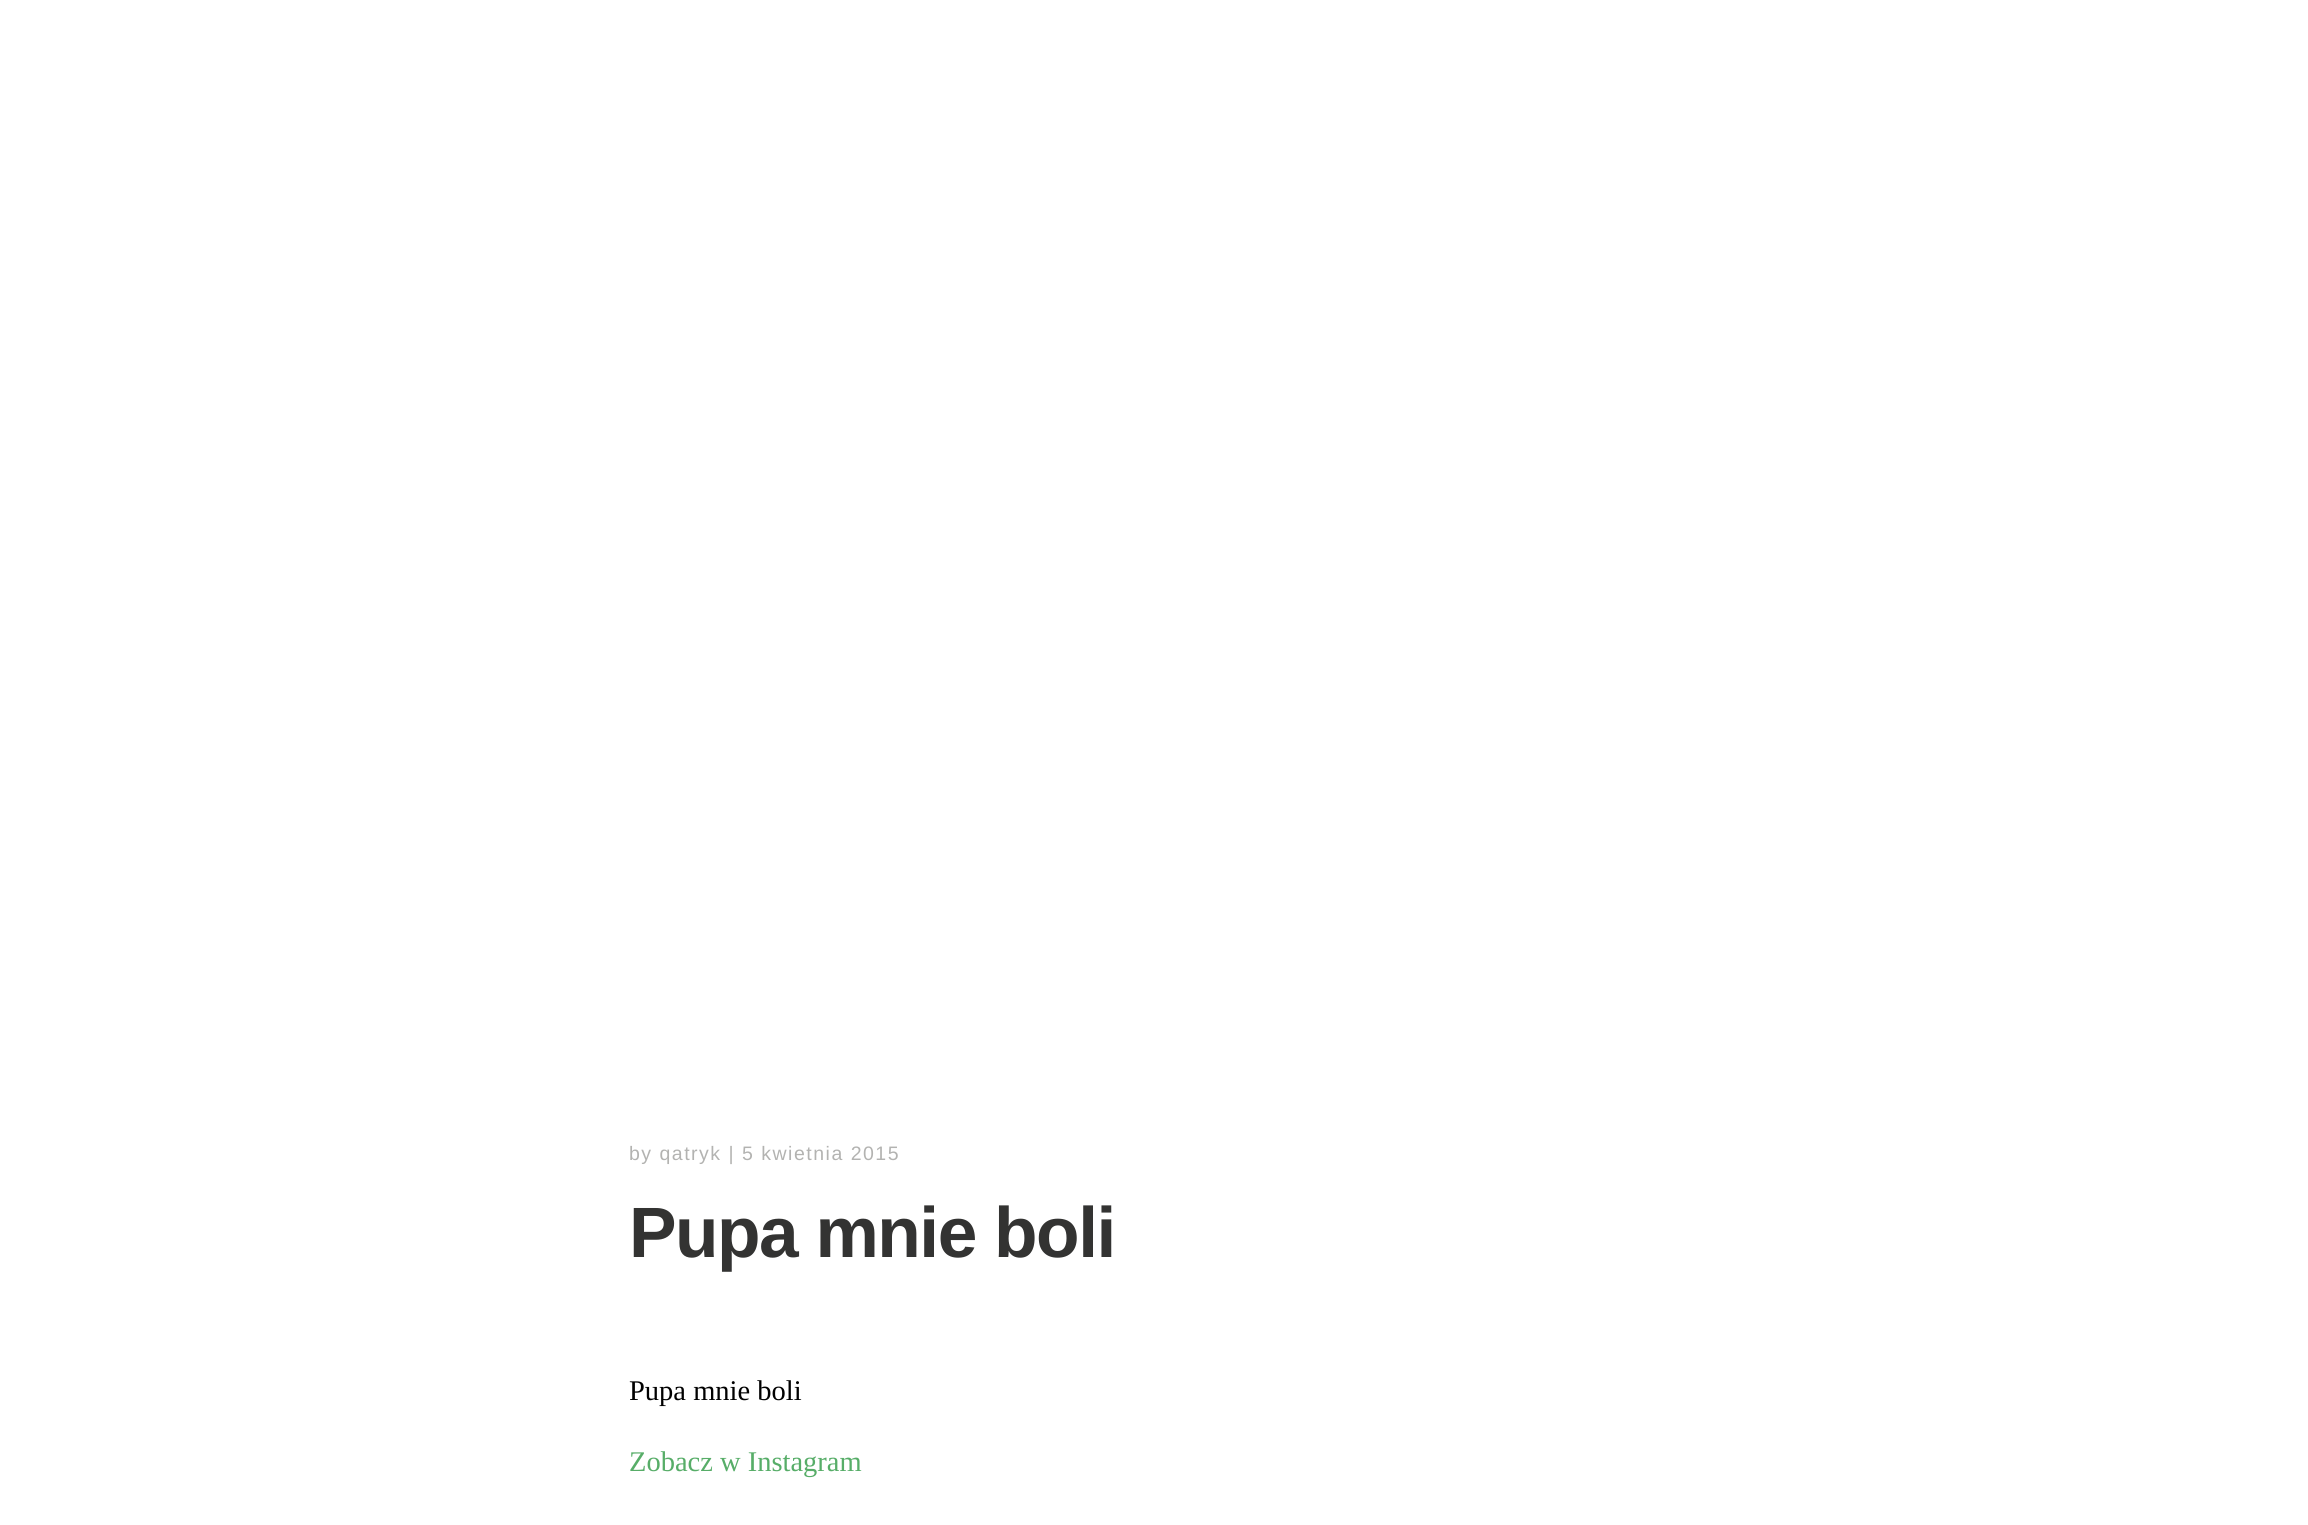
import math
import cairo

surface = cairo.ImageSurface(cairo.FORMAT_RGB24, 2308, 1525)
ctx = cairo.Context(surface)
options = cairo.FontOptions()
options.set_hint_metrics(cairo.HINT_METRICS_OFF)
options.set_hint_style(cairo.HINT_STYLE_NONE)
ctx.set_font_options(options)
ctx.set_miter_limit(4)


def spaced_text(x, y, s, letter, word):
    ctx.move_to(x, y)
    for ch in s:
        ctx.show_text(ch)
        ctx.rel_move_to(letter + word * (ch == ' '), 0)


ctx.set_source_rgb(1, 1, 1)
ctx.paint()
ctx.select_font_face("Liberation Sans")
ctx.set_font_size(19.5)
ctx.set_source_rgb(0.702, 0.702, 0.694)
spaced_text(629, 1160, "by qatryk | 5 kwietnia 2015", 1.5, 0)
ctx.select_font_face("Liberation Sans", cairo.FONT_SLANT_NORMAL, cairo.FONT_WEIGHT_BOLD)
ctx.set_font_size(71.25)
ctx.set_source_rgb(0.2, 0.2, 0.196)
spaced_text(629, 1257, "Pupa mnie boli", -1.5, 0)
ctx.select_font_face("Liberation Serif")
ctx.set_font_size(28.5)
ctx.set_source_rgb(0, 0, 0)
ctx.move_to(629, 1400)
ctx.show_text("Pupa mnie boli")
ctx.set_source_rgb(0.341, 0.678, 0.408)
ctx.move_to(629, 1471)
ctx.show_text("Zobacz w Instagram")
surface.write_to_png("page.png")
